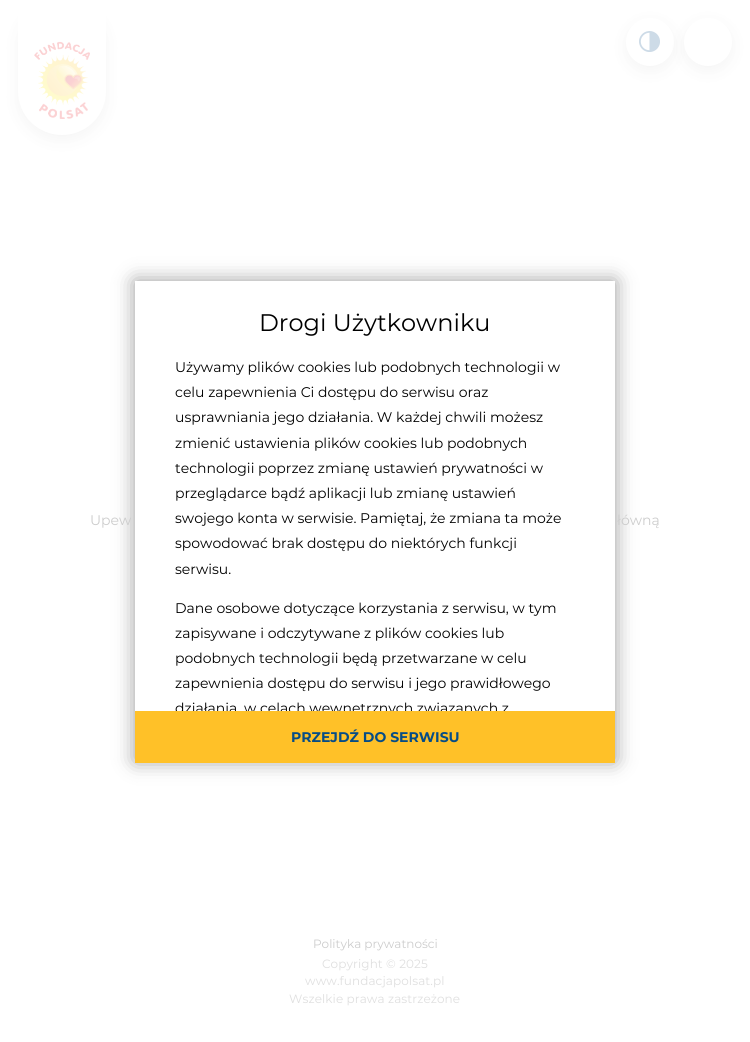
import math
import cairo

surface = cairo.ImageSurface(cairo.FORMAT_RGB24, 750, 1042)
ctx = cairo.Context(surface)
options = cairo.FontOptions()
options.set_hint_metrics(cairo.HINT_METRICS_OFF)
options.set_hint_style(cairo.HINT_STYLE_NONE)
ctx.set_font_options(options)
ctx.set_miter_limit(4)


def spaced_text(x, y, s, letter, word):
    ctx.move_to(x, y)
    for ch in s:
        ctx.show_text(ch)
        ctx.rel_move_to(letter + word * (ch == ' '), 0)


def round_rect(x, y, w, h, r):
    ctx.new_sub_path()
    for i, (u, v) in enumerate([(x + w - r, y + h - r), (x + r, y + h - r), (x + r, y + r), (x + w - r, y + r)]):
        ctx.arc(u, v, r, i * math.pi / 2, (i + 1) * math.pi / 2)
    ctx.close_path()


def shadow(x, y, w, h, r, blur, alpha):
    ctx.push_group_with_content(cairo.CONTENT_ALPHA)
    ctx.set_operator(cairo.OPERATOR_SOURCE)
    for i in range(15, -16, -2):
        e = blur * i / 6
        if min(w, h) + 2 * e > 0:
            ctx.set_source_rgba(0, 0, 0, alpha * math.erfc((i - 1) / 8.5) / 2)
            round_rect(x - e, y - e, w + 2 * e, h + 2 * e, max(0, min(r + e + blur * .6, min(w, h) / 2 + e)))
            ctx.fill()
    ctx.mask(ctx.pop_group())


def picture(path, x, y, w, h):
    ctx.save()
    ctx.set_source_surface(cairo.ImageSurface.create_from_png(path), x, y)
    ctx.rectangle(x, y, w, h)
    ctx.fill()
    ctx.restore()


ctx.set_source_rgb(1, 1, 1)
ctx.paint()
ctx.set_source_rgb(0.8, 0.8, 0.8)
shadow(18, 5, 88, 135, 44, 7.5, 0.2)
ctx.set_source_rgb(1, 1, 1)
ctx.new_path()
ctx.move_to(18, 0)
ctx.line_to(106, 0)
ctx.line_to(106, 91)
ctx.curve_to(106, 115.5, 86.5, 135, 62, 135)
ctx.curve_to(37.5, 135, 18, 115.5, 18, 91)
ctx.close_path()
ctx.fill()
picture("img1.png", 34, 41, 56, 78)
ctx.set_source_rgb(0.8, 0.8, 0.8)
shadow(626, 23, 48, 48, 24, 7.5, 0.2)
ctx.set_source_rgb(1, 1, 1)
ctx.arc(650, 42, 24, 0, 2 * math.pi)
ctx.fill()
picture("img2.png", 639, 31, 21, 21)
ctx.set_source_rgb(0.8, 0.8, 0.8)
shadow(684, 23, 48, 48, 24, 7.5, 0.2)
ctx.set_source_rgb(1, 1, 1)
ctx.arc(708, 42, 24, 0, 2 * math.pi)
ctx.fill()
ctx.set_source_rgb(0, 0, 0)
shadow(135, 281, 480, 480, 0, 10, 0.4)
ctx.set_source_rgb(1, 1, 1)
ctx.rectangle(135, 281, 480, 430)
ctx.fill()
ctx.select_font_face("Montserrat")
ctx.set_font_size(24)
ctx.set_source_rgb(0, 0, 0)
ctx.move_to(259, 331)
ctx.show_text("Drogi Użytkowniku")
ctx.set_font_size(14)
ctx.move_to(175, 372)
ctx.show_text("Używamy plików cookies lub podobnych technologii w")
ctx.move_to(175, 397)
ctx.show_text("celu zapewnienia Ci dostępu do serwisu oraz")
ctx.move_to(175, 422)
ctx.show_text("usprawniania jego działania. W każdej chwili możesz")
ctx.move_to(175, 448)
ctx.show_text("zmienić ustawienia plików cookies lub podobnych")
ctx.move_to(175, 473)
ctx.show_text("technologii poprzez zmianę ustawień prywatności w")
ctx.move_to(175, 498)
ctx.show_text("przeglądarce bądź aplikacji lub zmianę ustawień")
ctx.move_to(175, 523)
ctx.show_text("swojego konta w serwisie. Pamiętaj, że zmiana ta może")
ctx.move_to(175, 548)
ctx.show_text("spowodować brak dostępu do niektórych funkcji")
ctx.move_to(175, 574)
ctx.show_text("serwisu.")
ctx.move_to(175, 613)
ctx.show_text("Dane osobowe dotyczące korzystania z serwisu, w tym")
ctx.move_to(175, 638)
ctx.show_text("zapisywane i odczytywane z plików cookies lub")
ctx.move_to(175, 663)
ctx.show_text("podobnych technologii będą przetwarzane w celu")
ctx.move_to(175, 688)
ctx.show_text("zapewnienia dostępu do serwisu i jego prawidłowego")
ctx.save()
ctx.rectangle(135, 311, 465, 400)
ctx.clip()
ctx.move_to(175, 713)
ctx.show_text("działania")
ctx.move_to(244, 713)
ctx.show_text("w celach wewnętrznych związanych z")
ctx.restore()
ctx.set_source_rgb(1, 0.757, 0.157)
ctx.rectangle(135, 711, 480, 52)
ctx.fill()
ctx.select_font_face("Montserrat", cairo.FONT_SLANT_NORMAL, cairo.FONT_WEIGHT_BOLD)
ctx.set_source_rgb(0.027, 0.298, 0.525)
ctx.move_to(291, 742)
ctx.show_text("PRZEJDŹ DO SERWISU")
ctx.select_font_face("Montserrat")
ctx.set_source_rgb(0.8, 0.8, 0.8)
ctx.move_to(90, 525)
ctx.show_text("Upew")
ctx.move_to(617, 525)
ctx.show_text("łówną")
ctx.set_font_size(12)
ctx.move_to(313, 948)
ctx.show_text("Polityka prywatności")
ctx.set_source_rgb(0.875, 0.875, 0.875)
spaced_text(322, 968, "Copyright © 2025", 0.1, 0)
spaced_text(305, 985, "www.fundacjapolsat.pl", 0.1, 0)
spaced_text(289, 1003, "Wszelkie prawa zastrzeżone", 0.1, 0)
surface.write_to_png("page.png")
